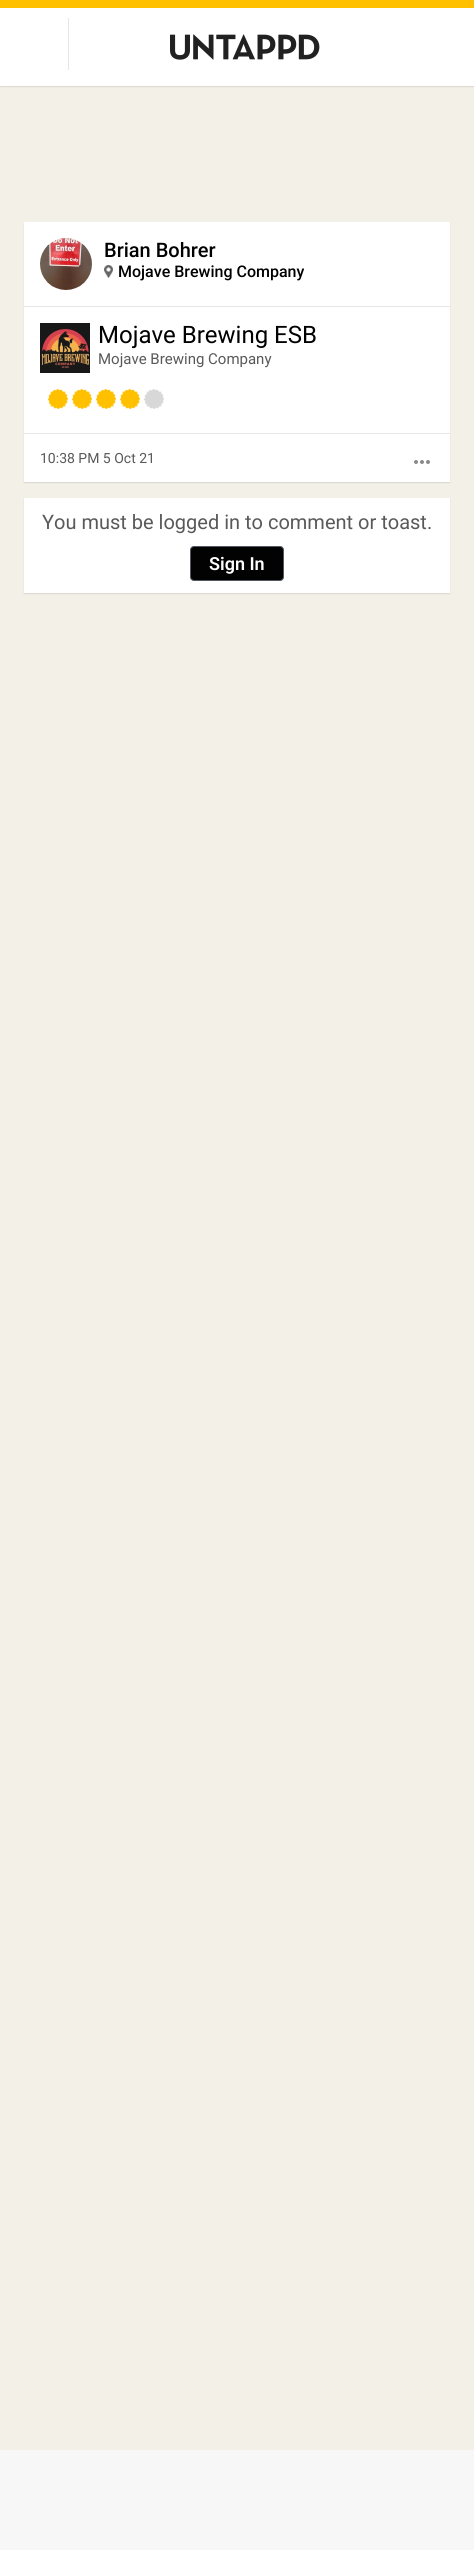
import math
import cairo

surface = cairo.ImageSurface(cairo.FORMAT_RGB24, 474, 2550)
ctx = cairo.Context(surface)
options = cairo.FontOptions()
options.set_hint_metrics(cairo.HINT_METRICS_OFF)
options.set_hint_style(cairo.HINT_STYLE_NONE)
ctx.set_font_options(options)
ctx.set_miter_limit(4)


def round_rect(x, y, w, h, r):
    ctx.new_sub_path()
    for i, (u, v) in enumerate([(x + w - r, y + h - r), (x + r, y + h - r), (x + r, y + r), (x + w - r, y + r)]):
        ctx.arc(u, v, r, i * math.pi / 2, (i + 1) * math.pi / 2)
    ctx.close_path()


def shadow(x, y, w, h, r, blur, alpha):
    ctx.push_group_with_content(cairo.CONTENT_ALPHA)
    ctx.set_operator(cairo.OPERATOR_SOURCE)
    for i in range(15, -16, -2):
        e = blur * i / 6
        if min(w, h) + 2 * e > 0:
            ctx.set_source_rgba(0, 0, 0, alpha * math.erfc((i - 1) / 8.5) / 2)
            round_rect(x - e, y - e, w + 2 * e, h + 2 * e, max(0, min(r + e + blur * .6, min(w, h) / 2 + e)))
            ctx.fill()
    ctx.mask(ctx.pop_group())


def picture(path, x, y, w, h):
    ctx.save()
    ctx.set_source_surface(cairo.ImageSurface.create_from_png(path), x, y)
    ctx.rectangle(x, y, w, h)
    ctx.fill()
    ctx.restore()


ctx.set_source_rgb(0.953, 0.941, 0.91)
ctx.paint()
ctx.set_source_rgb(0, 0, 0)
shadow(0, 1, 474, 86, 0, 0.5, 0.1)
ctx.set_source_rgb(1, 1, 1)
ctx.rectangle(0, 8, 474, 78)
ctx.fill()
ctx.set_source_rgb(1, 0.753, 0)
ctx.rectangle(0, 0, 474, 8)
ctx.fill()
ctx.set_source_rgb(0.902, 0.902, 0.902)
ctx.rectangle(68, 18, 1, 52)
ctx.fill()
picture("img1.png", 170, 34, 150, 26)
ctx.set_source_rgb(0, 0, 0)
shadow(24, 223, 426, 260, 0, 0.5, 0.1)
ctx.set_source_rgb(1, 1, 1)
ctx.rectangle(24, 222, 426, 260)
ctx.fill()
ctx.set_source_rgb(0.902, 0.902, 0.902)
ctx.rectangle(24, 306, 426, 1)
ctx.fill()
picture("img2.png", 40, 238, 52, 52)
ctx.select_font_face("Roboto Medium")
ctx.set_font_size(20)
ctx.set_source_rgb(0, 0, 0)
ctx.move_to(104, 257)
ctx.show_text("Brian Bohrer")
picture("img3.png", 104, 265, 9, 13)
ctx.set_font_size(16)
ctx.move_to(118, 277)
ctx.show_text("Mojave Brewing Company")
ctx.set_source_rgb(0.902, 0.902, 0.902)
ctx.rectangle(24, 433, 426, 1)
ctx.fill()
picture("img4.png", 40, 323, 50, 50)
ctx.select_font_face("Roboto")
ctx.set_font_size(24)
ctx.set_source_rgb(0, 0, 0)
ctx.move_to(98, 343)
ctx.show_text("Mojave Brewing ESB")
ctx.set_font_size(15)
ctx.set_source_rgb(0.349, 0.349, 0.349)
ctx.move_to(98, 364)
ctx.show_text("Mojave Brewing Company")
picture("img5.png", 48, 389, 20, 20)
picture("img6.png", 72, 389, 20, 20)
picture("img6.png", 96, 389, 20, 20)
picture("img5.png", 120, 389, 20, 20)
picture("img7.png", 144, 389, 20, 20)
ctx.set_font_size(14)
ctx.move_to(40, 463)
ctx.show_text("10:38 PM 5 Oct 21")
picture("img8.png", 414, 460, 16, 4)
ctx.set_source_rgb(0, 0, 0)
shadow(24, 499, 426, 95, 0, 0.5, 0.1)
ctx.set_source_rgb(1, 1, 1)
ctx.rectangle(24, 498, 426, 95)
ctx.fill()
ctx.set_font_size(20)
ctx.set_source_rgb(0.349, 0.349, 0.349)
ctx.move_to(42, 529)
ctx.show_text("You must be logged in to comment or toast.")
ctx.set_source_rgb(0.008, 0.008, 0.008)
round_rect(190.5, 546.5, 93, 34, 3.5)
ctx.fill_preserve()
ctx.set_source_rgb(0.329, 0.345, 0.388)
ctx.set_line_width(1)
ctx.stroke()
ctx.select_font_face("Roboto SemiBold")
ctx.set_font_size(18)
ctx.set_source_rgb(1, 1, 1)
ctx.move_to(209, 570)
ctx.show_text("Sign In")
ctx.set_source_rgb(0.969, 0.965, 0.965)
ctx.rectangle(0, 2450, 474, 100)
ctx.fill()
surface.write_to_png("page.png")
